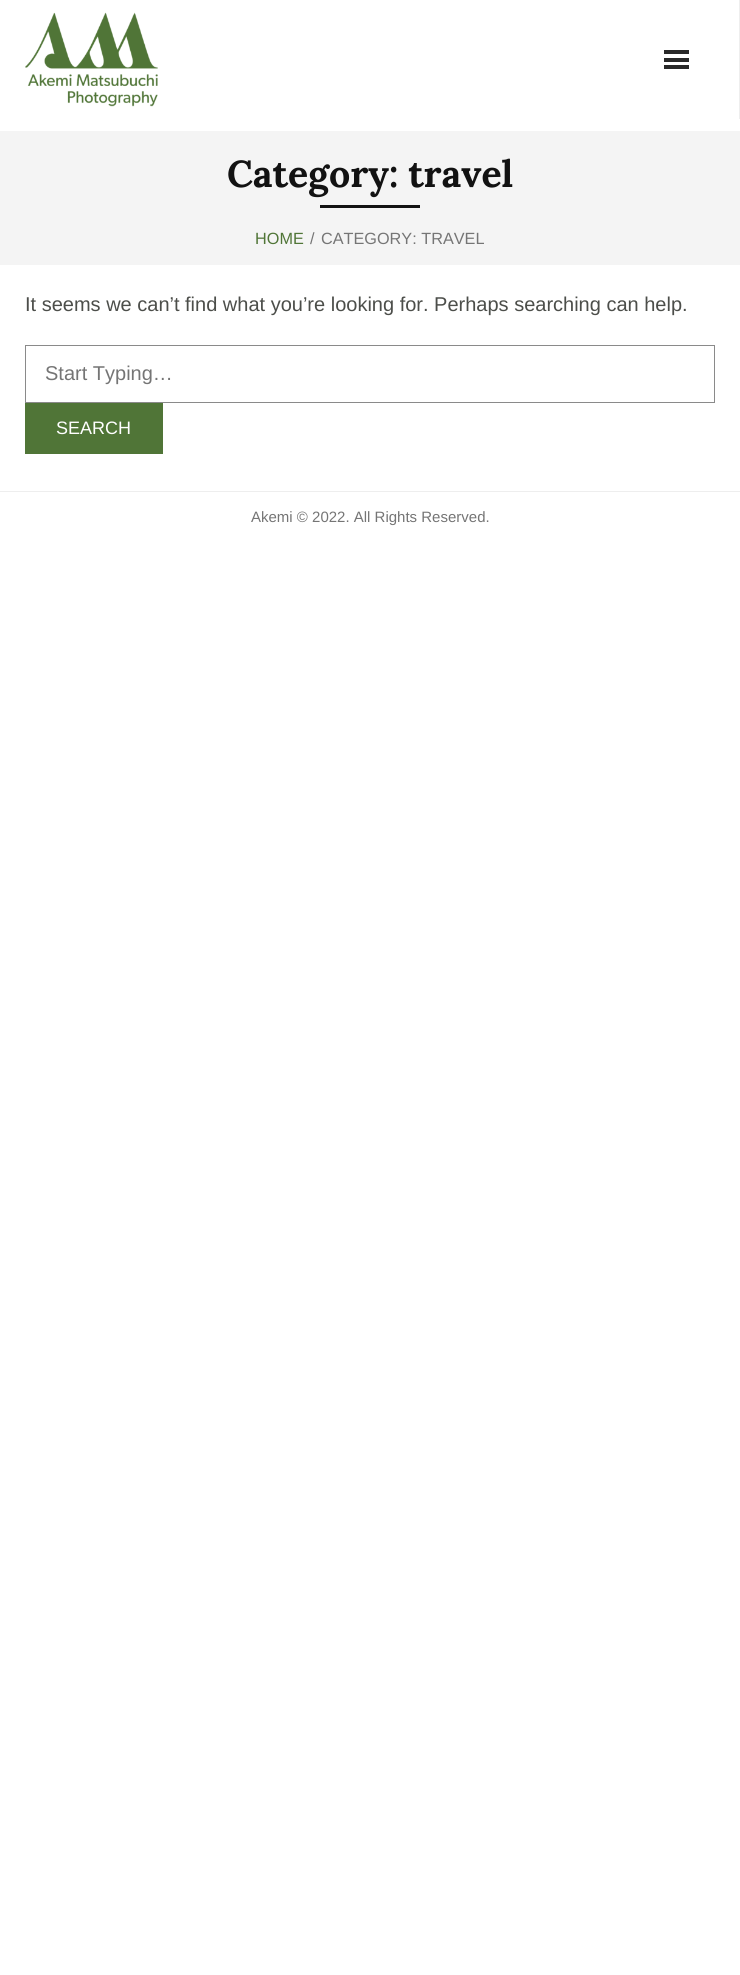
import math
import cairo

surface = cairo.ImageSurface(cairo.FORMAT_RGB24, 740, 1975)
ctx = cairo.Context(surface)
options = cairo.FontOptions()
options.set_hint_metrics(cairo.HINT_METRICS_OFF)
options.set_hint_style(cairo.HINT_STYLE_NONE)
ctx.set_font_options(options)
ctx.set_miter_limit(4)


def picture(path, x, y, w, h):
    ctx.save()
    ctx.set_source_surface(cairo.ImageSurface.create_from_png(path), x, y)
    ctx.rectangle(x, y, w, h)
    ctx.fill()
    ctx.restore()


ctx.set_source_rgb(1, 1, 1)
ctx.paint()
ctx.set_source_rgb(0.933, 0.933, 0.933)
ctx.rectangle(739, 0, 1, 119)
ctx.fill()
picture("img1.png", 25, 12, 133, 95)
ctx.set_source_rgb(0.161, 0.161, 0.161)
ctx.rectangle(664, 50, 25, 4)
ctx.fill()
ctx.rectangle(664, 58, 25, 4)
ctx.fill()
ctx.rectangle(664, 65, 25, 4)
ctx.fill()
ctx.set_source_rgb(0.957, 0.957, 0.957)
ctx.rectangle(0, 131, 740, 134)
ctx.fill()
ctx.select_font_face("Lora", cairo.FONT_SLANT_NORMAL, cairo.FONT_WEIGHT_BOLD)
ctx.set_font_size(37.5)
ctx.set_source_rgb(0.071, 0.071, 0.071)
ctx.move_to(227, 187)
ctx.show_text("Category: travel")
ctx.rectangle(320, 205, 100, 3)
ctx.fill()
ctx.select_font_face("Liberation Sans")
ctx.set_font_size(16.25)
ctx.set_source_rgb(0.314, 0.459, 0.216)
ctx.move_to(255, 244)
ctx.show_text("HOME")
ctx.set_source_rgb(0.459, 0.459, 0.459)
ctx.move_to(310, 244)
ctx.show_text("/")
ctx.move_to(321, 244)
ctx.show_text("CATEGORY: TRAVEL")
ctx.set_font_size(20)
ctx.set_source_rgb(0.298, 0.306, 0.29)
ctx.move_to(25, 311)
ctx.show_text("It seems we can’t find what you’re looking for. Perhaps searching can help.")
ctx.rectangle(25.5, 345.5, 689, 57)
ctx.set_source_rgb(0.541, 0.541, 0.541)
ctx.set_line_width(1)
ctx.stroke()
ctx.set_source_rgb(0.459, 0.459, 0.459)
ctx.move_to(45, 380)
ctx.show_text("Start Typing…")
ctx.set_source_rgb(0.314, 0.459, 0.216)
ctx.rectangle(25, 403, 138, 51)
ctx.fill()
ctx.set_font_size(18)
ctx.set_source_rgb(1, 1, 1)
ctx.move_to(56, 434)
ctx.show_text("SEARCH")
ctx.set_source_rgb(0.933, 0.933, 0.933)
ctx.rectangle(0, 491, 740, 1)
ctx.fill()
ctx.set_font_size(15)
ctx.set_source_rgb(0.459, 0.459, 0.459)
ctx.move_to(251, 522)
ctx.show_text("Akemi © 2022. All Rights Reserved.")
surface.write_to_png("page.png")
